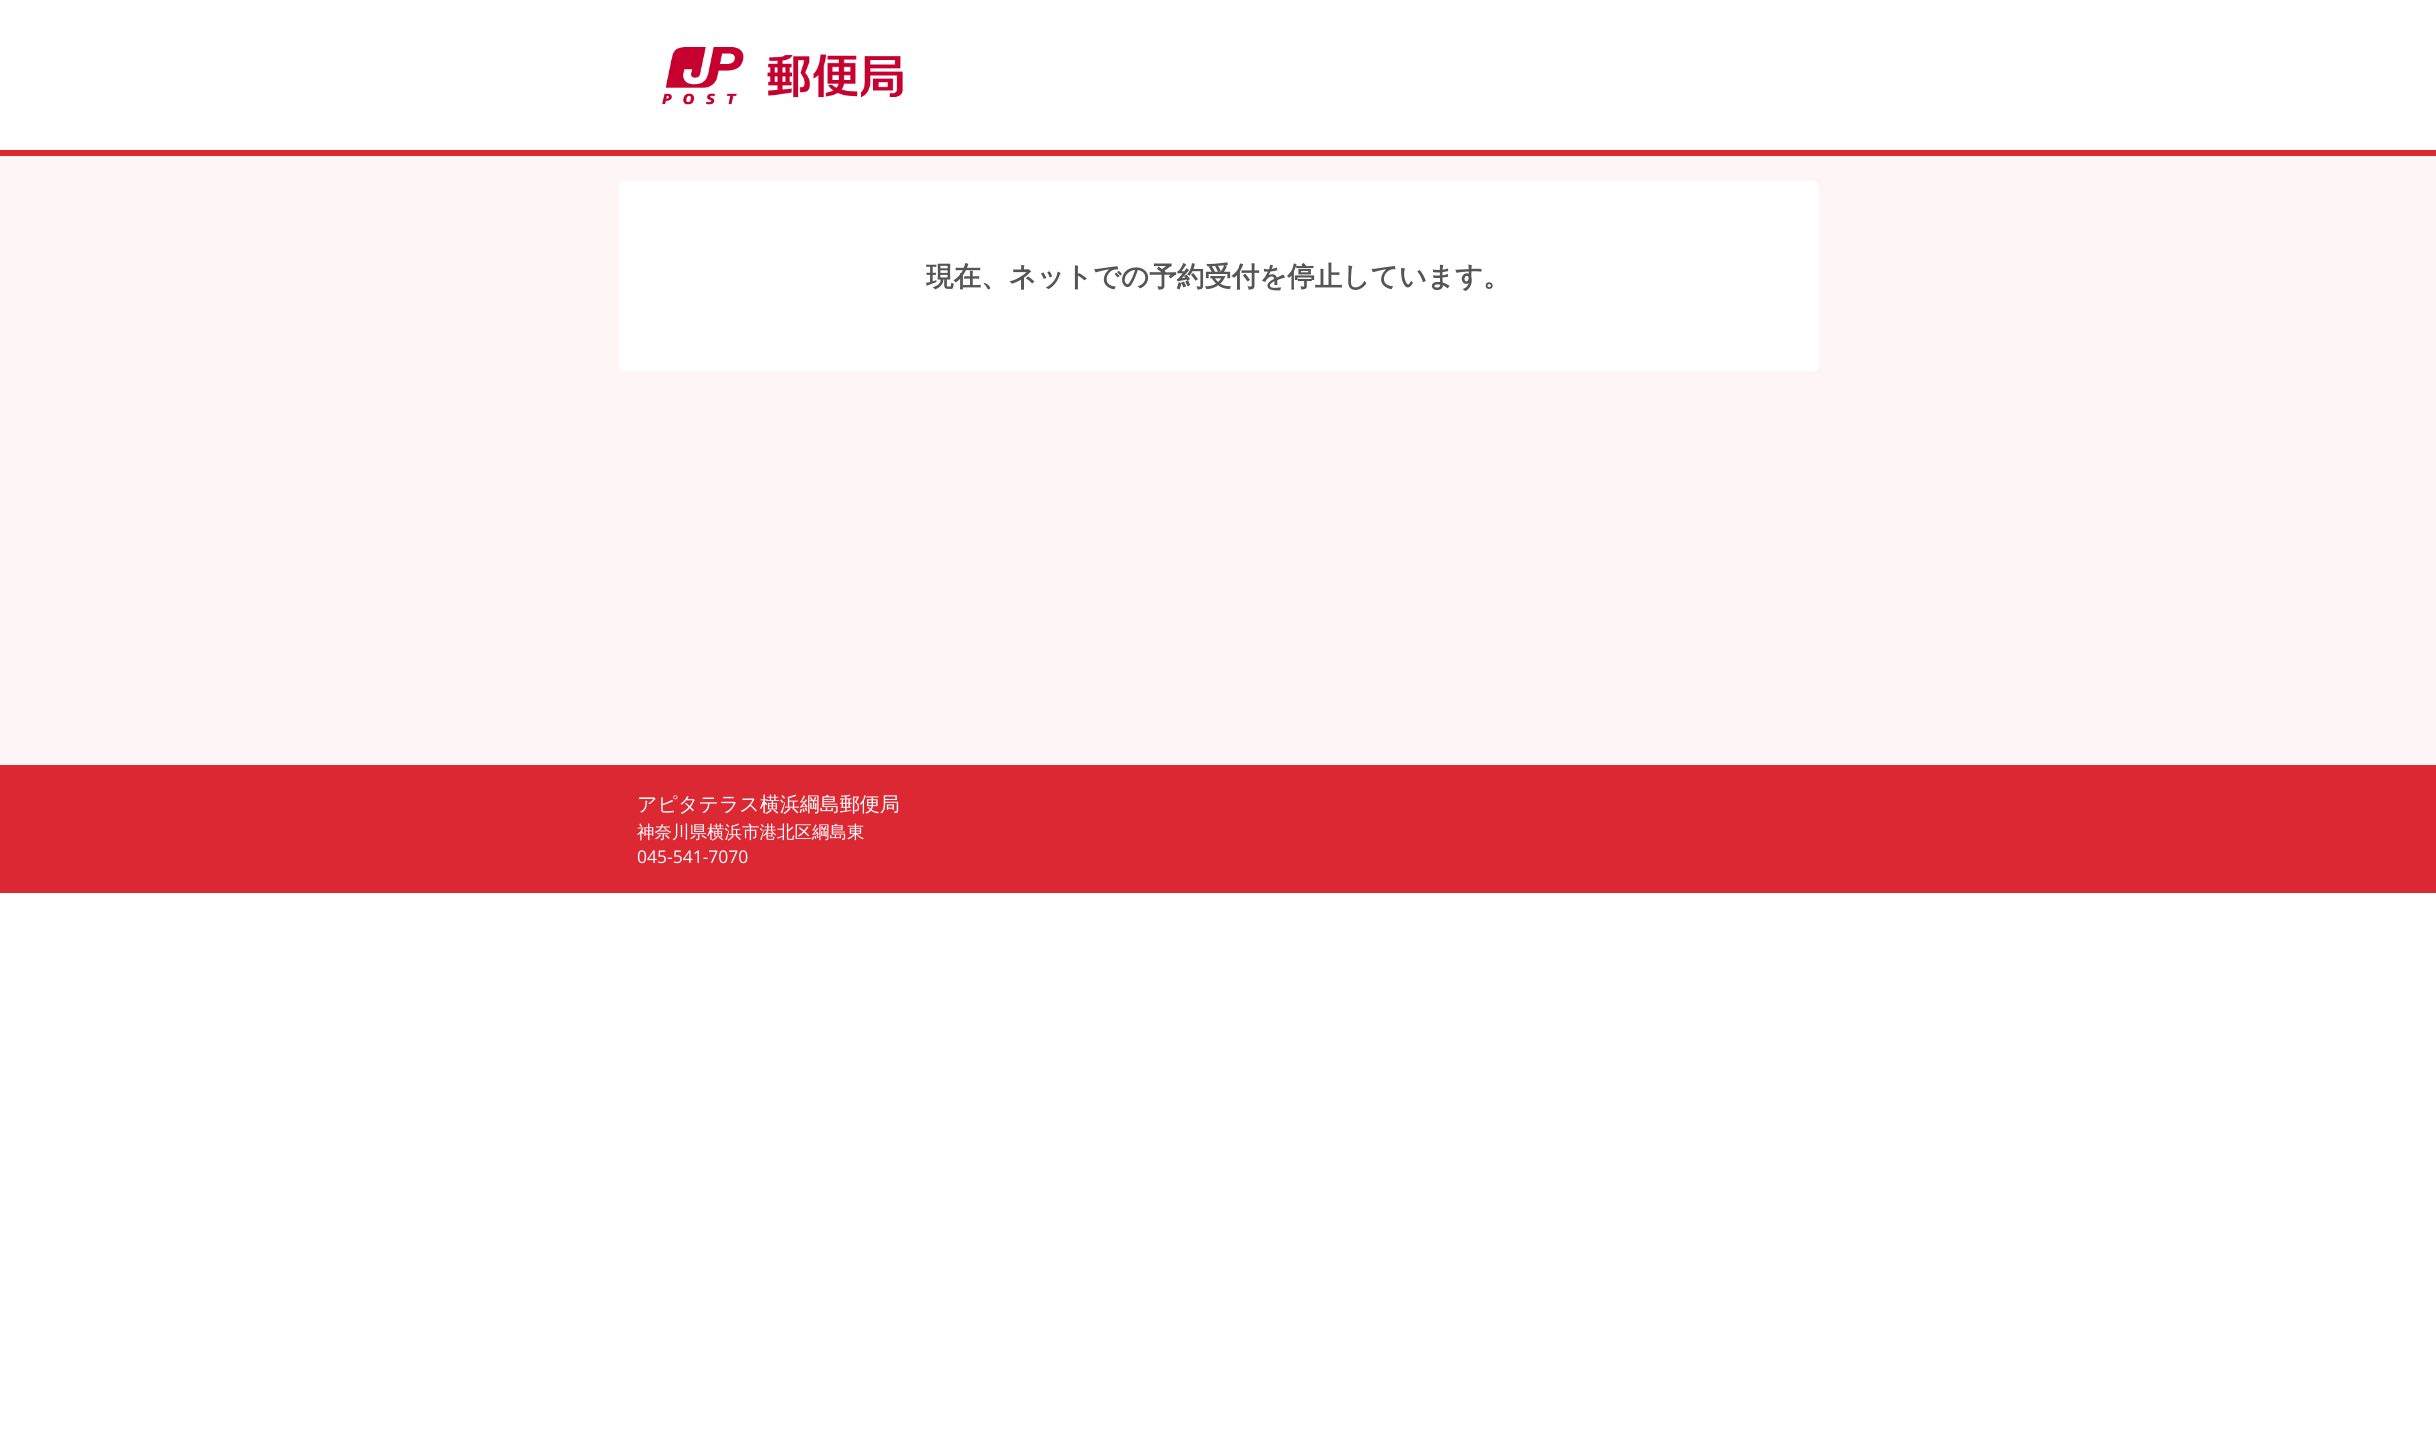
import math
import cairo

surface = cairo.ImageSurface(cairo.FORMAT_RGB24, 2436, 1454)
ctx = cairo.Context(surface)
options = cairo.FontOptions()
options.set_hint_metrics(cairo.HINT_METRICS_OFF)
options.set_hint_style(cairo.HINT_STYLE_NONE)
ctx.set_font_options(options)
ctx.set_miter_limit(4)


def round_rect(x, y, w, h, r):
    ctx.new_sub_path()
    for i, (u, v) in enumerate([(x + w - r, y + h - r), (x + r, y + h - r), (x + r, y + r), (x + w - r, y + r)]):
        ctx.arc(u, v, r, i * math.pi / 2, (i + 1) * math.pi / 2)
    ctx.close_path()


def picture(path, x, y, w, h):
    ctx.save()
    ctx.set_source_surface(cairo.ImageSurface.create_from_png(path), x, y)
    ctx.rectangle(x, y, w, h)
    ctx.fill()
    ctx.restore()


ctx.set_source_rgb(1, 1, 1)
ctx.paint()
ctx.set_source_rgb(0.863, 0.157, 0.196)
ctx.rectangle(0, 150, 2436, 6)
ctx.fill()
picture("img1.png", 662, 47, 241, 58)
ctx.set_source_rgb(0.996, 0.961, 0.961)
ctx.rectangle(0, 156, 2436, 609)
ctx.fill()
ctx.set_source_rgb(1, 1, 1)
round_rect(619, 181, 1200, 190, 6)
ctx.fill()
ctx.select_font_face("WenQuanYi Zen Hei", cairo.FONT_SLANT_NORMAL, cairo.FONT_WEIGHT_BOLD)
ctx.set_font_size(27.5)
ctx.set_source_rgb(0.333, 0.333, 0.333)
ctx.move_to(926, 286)
ctx.show_text("現在、ネットでの予約受付を停止しています。")
ctx.set_source_rgb(0.863, 0.157, 0.196)
ctx.rectangle(0, 765, 2436, 128)
ctx.fill()
ctx.select_font_face("WenQuanYi Zen Hei Medium")
ctx.set_font_size(20)
ctx.set_source_rgb(1, 1, 1)
ctx.move_to(637, 811)
ctx.show_text("アピタテラス横浜綱島郵便局")
ctx.set_font_size(17.5)
ctx.move_to(637, 838)
ctx.show_text("神奈川県横浜市港北区綱島東")
ctx.select_font_face("Open Sans")
ctx.move_to(637, 863)
ctx.show_text("045-541-7070")
surface.write_to_png("page.png")
